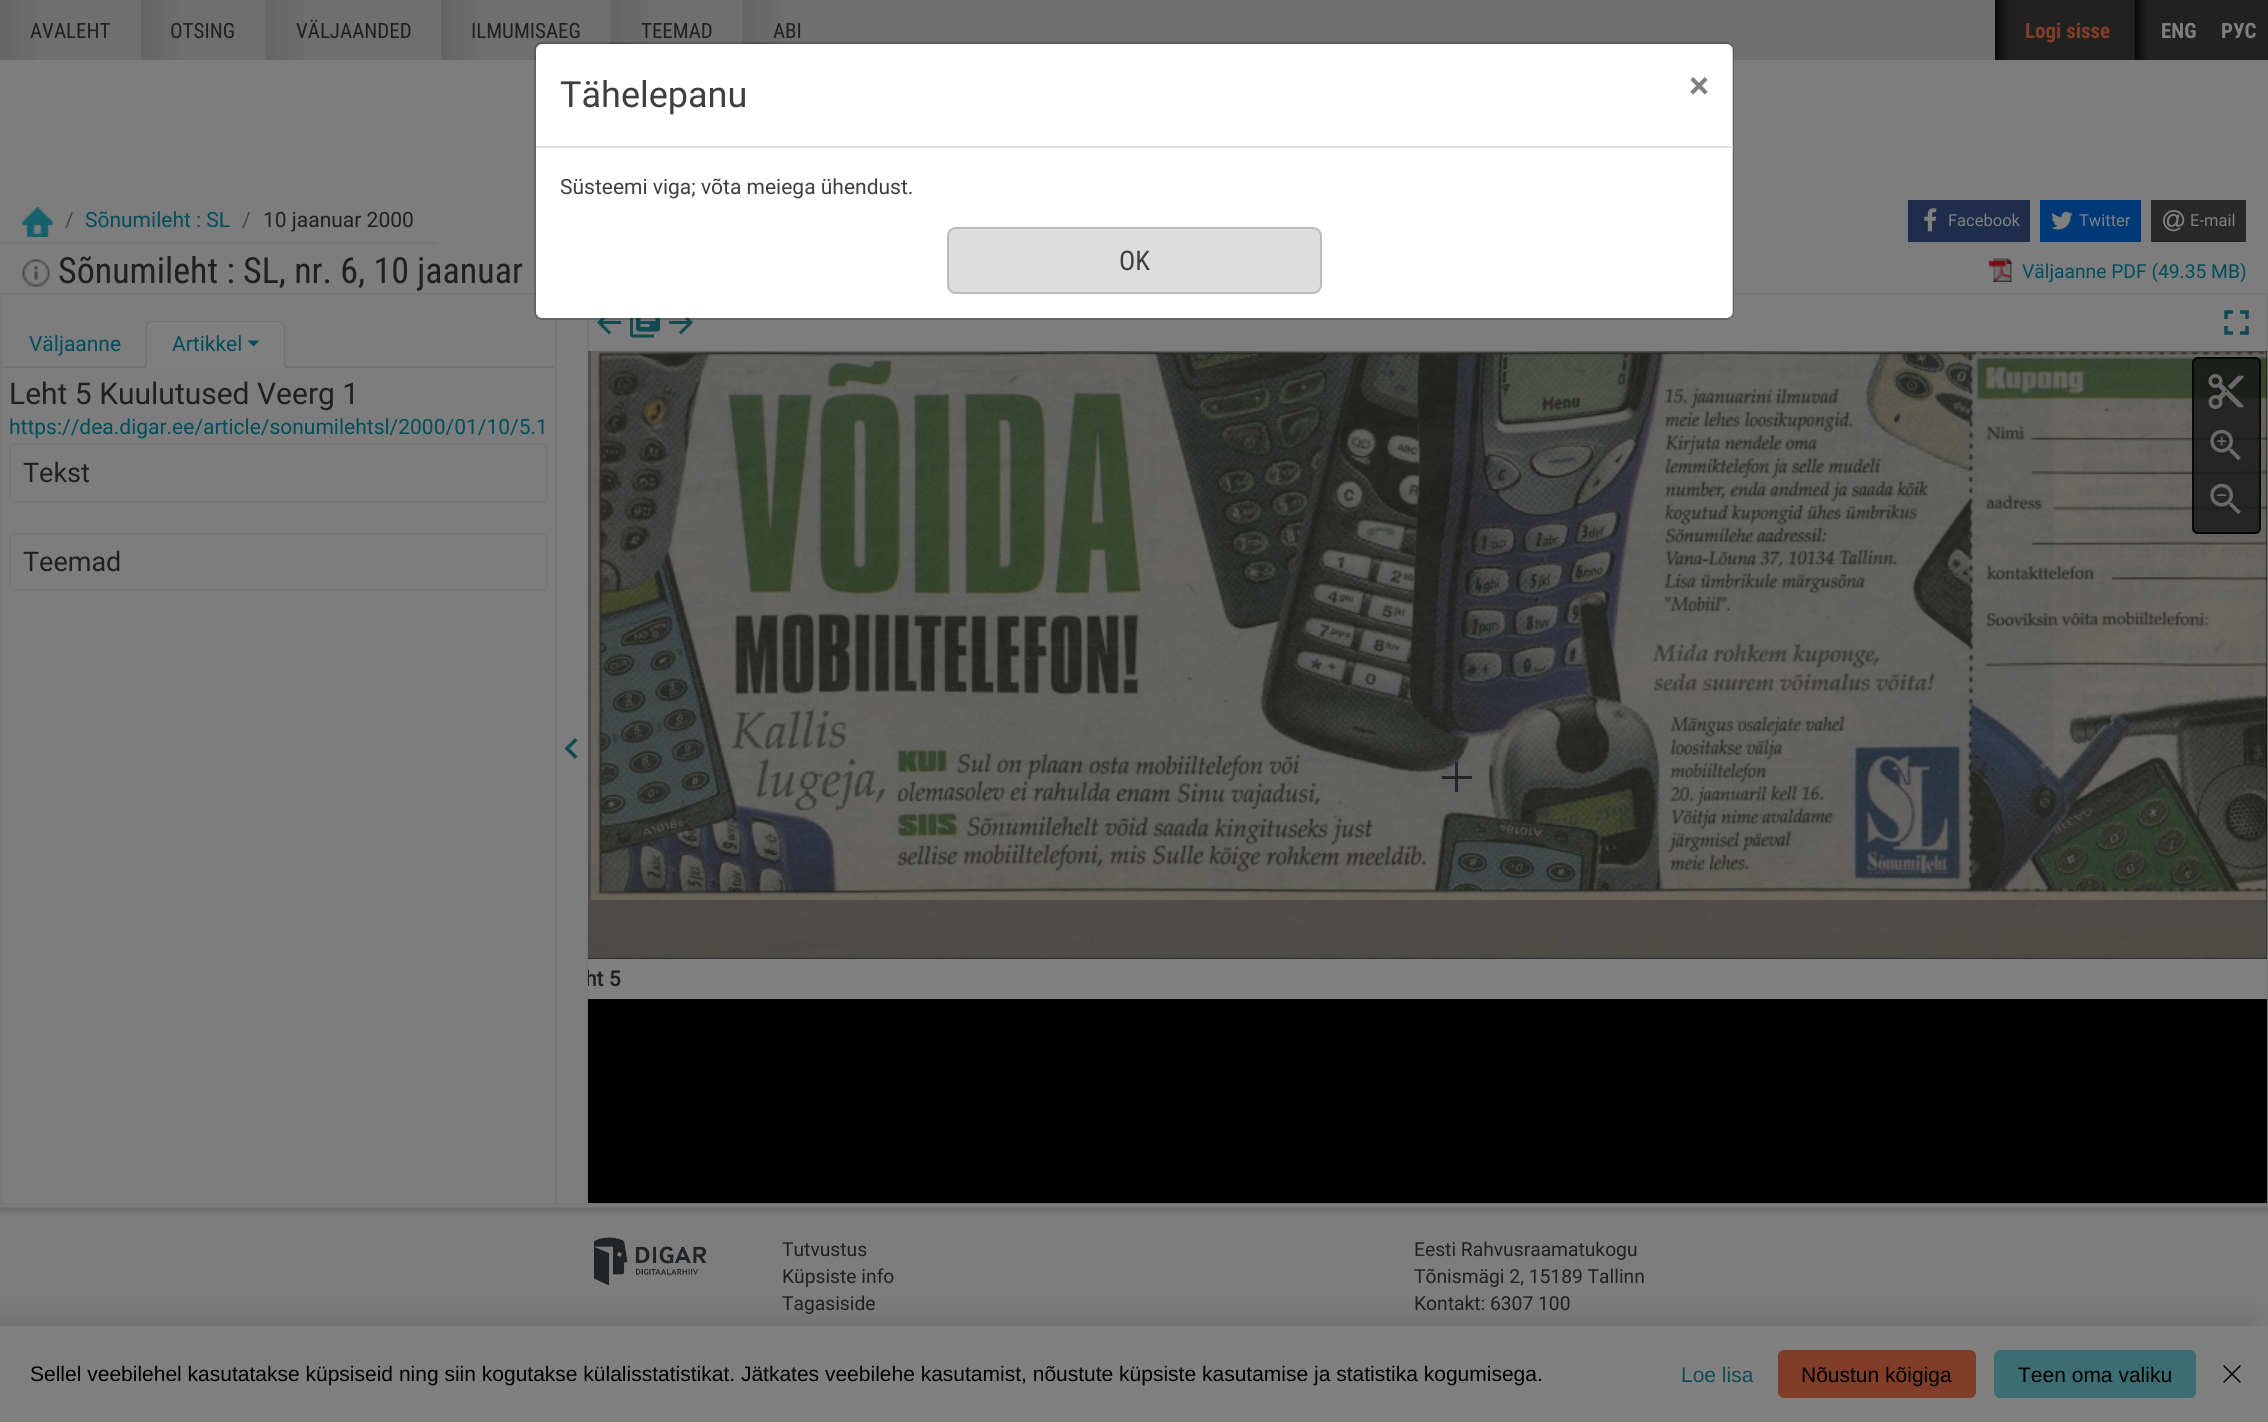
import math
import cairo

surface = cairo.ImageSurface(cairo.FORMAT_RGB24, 2268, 1422)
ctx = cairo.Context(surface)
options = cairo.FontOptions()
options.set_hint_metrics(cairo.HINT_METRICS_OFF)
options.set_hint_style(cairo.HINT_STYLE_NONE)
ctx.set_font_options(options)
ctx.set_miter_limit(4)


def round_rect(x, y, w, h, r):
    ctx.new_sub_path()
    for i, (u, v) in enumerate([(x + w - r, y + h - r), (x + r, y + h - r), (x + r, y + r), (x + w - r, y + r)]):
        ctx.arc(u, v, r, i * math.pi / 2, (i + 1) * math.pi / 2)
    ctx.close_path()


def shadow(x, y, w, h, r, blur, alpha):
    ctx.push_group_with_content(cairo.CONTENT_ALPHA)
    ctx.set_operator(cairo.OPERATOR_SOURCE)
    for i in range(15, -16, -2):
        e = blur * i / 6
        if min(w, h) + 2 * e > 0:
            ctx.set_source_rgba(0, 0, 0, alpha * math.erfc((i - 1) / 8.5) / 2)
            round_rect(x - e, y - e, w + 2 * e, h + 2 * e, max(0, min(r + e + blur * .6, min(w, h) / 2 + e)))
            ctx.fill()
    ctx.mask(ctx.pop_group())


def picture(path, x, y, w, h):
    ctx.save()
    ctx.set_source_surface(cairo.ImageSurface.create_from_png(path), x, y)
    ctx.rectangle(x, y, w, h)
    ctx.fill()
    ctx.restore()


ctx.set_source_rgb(0.49, 0.49, 0.49)
ctx.paint()
ctx.set_source_rgb(0.435, 0.435, 0.435)
ctx.rectangle(0, 0, 1995, 60)
ctx.fill()
picture("img1.png", 0, 0, 38, 60)
ctx.select_font_face("Roboto Condensed")
ctx.set_font_size(21)
ctx.set_source_rgb(0.125, 0.125, 0.125)
ctx.move_to(30, 38)
ctx.show_text("AVALEHT")
picture("img1.png", 141, 0, 38, 60)
ctx.move_to(170, 38)
ctx.show_text("OTSING")
picture("img2.png", 265, 0, 39, 60)
ctx.move_to(296, 38)
ctx.show_text("VÄLJAANDED")
picture("img3.png", 441, 0, 38, 60)
ctx.move_to(471, 38)
ctx.show_text("ILMUMISAEG")
picture("img4.png", 610, 0, 39, 44)
ctx.move_to(641, 38)
ctx.show_text("TEEMAD")
picture("img4.png", 742, 0, 39, 44)
ctx.move_to(773, 38)
ctx.show_text("ABI")
ctx.set_source_rgb(0.129, 0.129, 0.129)
ctx.rectangle(1995, 0, 273, 60)
ctx.fill()
picture("img5.png", 2134, 0, 14, 60)
picture("img6.png", 1995, 0, 14, 60)
ctx.select_font_face("Roboto Condensed", cairo.FONT_SLANT_NORMAL, cairo.FONT_WEIGHT_BOLD)
ctx.set_source_rgb(0.502, 0.239, 0.153)
ctx.move_to(2025, 38)
ctx.show_text("Logi sisse")
ctx.set_source_rgb(0.502, 0.502, 0.502)
ctx.move_to(2161, 38)
ctx.show_text("ENG")
ctx.move_to(2221, 38)
ctx.show_text("РУС")
ctx.set_source_rgb(0.463, 0.467, 0.471)
ctx.rectangle(0, 242, 437, 2)
ctx.fill()
picture("img7.png", 22, 207, 31, 30)
ctx.select_font_face("Roboto")
ctx.set_source_rgb(0.263, 0.278, 0.294)
ctx.move_to(65, 227)
ctx.show_text("/")
ctx.set_source_rgb(0, 0.306, 0.361)
ctx.move_to(85, 227)
ctx.show_text("Sõnumileht : SL")
ctx.set_source_rgb(0.263, 0.278, 0.294)
ctx.move_to(242, 227)
ctx.show_text("/")
ctx.set_source_rgb(0.125, 0.125, 0.125)
ctx.move_to(263, 227)
ctx.show_text("10 jaanuar 2000")
ctx.set_source_rgb(0.118, 0.176, 0.298)
ctx.rectangle(1908, 200, 122, 42)
ctx.fill()
picture("img8.png", 1924, 208, 13, 24)
ctx.set_font_size(16.5)
ctx.set_source_rgb(0.502, 0.502, 0.502)
ctx.move_to(1948, 226)
ctx.show_text("Facebook")
ctx.set_source_rgb(0, 0.224, 0.467)
ctx.rectangle(2040, 200, 101, 42)
ctx.fill()
picture("img9.png", 2051, 211, 22, 19)
ctx.set_source_rgb(0.502, 0.502, 0.502)
ctx.move_to(2079, 226)
ctx.show_text("Twitter")
ctx.set_source_rgb(0.157, 0.157, 0.157)
ctx.rectangle(2151, 200, 95, 42)
ctx.fill()
picture("img10.png", 2163, 210, 22, 22)
ctx.set_source_rgb(0.502, 0.502, 0.502)
ctx.move_to(2190, 226)
ctx.show_text("E-mail")
ctx.rectangle(1, 294, 2266, 910)
ctx.set_source_rgb(0.463, 0.467, 0.471)
ctx.stroke()
ctx.set_source_rgb(1, 1, 1)
round_rect(536, 44, 1197, 274, 6)
ctx.fill()
ctx.set_source_rgb(0.463, 0.467, 0.471)
ctx.rectangle(587, 318, 2, 885)
ctx.fill()
ctx.rectangle(555, 318, 2, 885)
ctx.fill()
picture("img13.png", 597, 318, 24, 17)
picture("img14.png", 630, 318, 30, 20)
picture("img15.png", 669, 318, 24, 17)
round_rect(535, 43, 1198, 276, 7)
ctx.set_source_rgba(0, 0, 0, 0.2)
ctx.stroke()
ctx.set_source_rgb(0.871, 0.886, 0.902)
ctx.rectangle(536, 146, 1197, 2)
ctx.fill()
ctx.set_font_size(36)
ctx.set_source_rgb(0.247, 0.247, 0.247)
ctx.move_to(560, 107)
ctx.show_text("Tähelepanu")
ctx.select_font_face("Roboto", cairo.FONT_SLANT_NORMAL, cairo.FONT_WEIGHT_BOLD)
ctx.set_source_rgb(0.502, 0.502, 0.502)
ctx.move_to(1689, 98)
ctx.show_text("×")
ctx.select_font_face("Roboto")
ctx.set_font_size(21)
ctx.set_source_rgb(0.247, 0.247, 0.247)
ctx.move_to(560, 194)
ctx.show_text("Süsteemi viga; võta meiega ühendust.")
ctx.set_source_rgb(0.867, 0.867, 0.867)
round_rect(948, 228, 373, 65, 8)
ctx.fill_preserve()
ctx.set_source_rgb(0.733, 0.733, 0.733)
ctx.stroke()
ctx.select_font_face("Roboto Condensed")
ctx.set_font_size(27)
ctx.set_source_rgb(0.247, 0.247, 0.247)
ctx.move_to(1119, 270)
ctx.show_text("OK")
picture("img11.png", 22, 259, 28, 28)
ctx.set_font_size(36)
ctx.set_source_rgb(0.125, 0.125, 0.125)
ctx.move_to(58, 283)
ctx.show_text("Sõnumileht : SL, nr. 6, 10 jaanuar")
picture("img12.png", 1988, 258, 24, 24)
ctx.select_font_face("Roboto")
ctx.set_font_size(19.25)
ctx.set_source_rgb(0, 0.306, 0.361)
ctx.move_to(2022, 278)
ctx.show_text("Väljaanne PDF (49.35 MB)")
ctx.set_source_rgb(0.435, 0.443, 0.451)
ctx.rectangle(3, 366, 551, 2)
ctx.fill()
ctx.set_font_size(21)
ctx.set_source_rgb(0, 0.306, 0.361)
ctx.move_to(29, 351)
ctx.show_text("Väljaanne")
ctx.set_source_rgb(0.502, 0.502, 0.502)
ctx.new_path()
ctx.move_to(152, 321)
ctx.line_to(279, 321)
ctx.curve_to(282.5, 321, 285, 323.5, 285, 327)
ctx.line_to(285, 368)
ctx.line_to(146, 368)
ctx.line_to(146, 327)
ctx.curve_to(146, 323.5, 148.5, 321, 152, 321)
ctx.close_path()
ctx.fill()
ctx.set_source_rgb(0.435, 0.443, 0.451)
ctx.new_path()
ctx.move_to(152, 321)
ctx.curve_to(150, 321, 148, 322, 147, 323)
ctx.line_to(148, 324)
ctx.curve_to(149, 323, 151, 322, 152, 322)
ctx.line_to(279, 322)
ctx.line_to(282, 324)
ctx.line_to(283, 323)
ctx.curve_to(282, 322, 280, 321, 279, 321)
ctx.close_path()
ctx.fill()
ctx.new_path()
ctx.move_to(285, 368)
ctx.line_to(285, 327)
ctx.curve_to(285, 326, 284, 324, 283, 323)
ctx.line_to(282, 324)
ctx.curve_to(283, 325, 284, 326, 284, 327)
ctx.line_to(284, 366)
ctx.close_path()
ctx.fill()
ctx.set_source_rgb(0.502, 0.502, 0.502)
ctx.new_path()
ctx.move_to(285, 368)
ctx.line_to(146, 368)
ctx.line_to(147, 366)
ctx.line_to(284, 366)
ctx.close_path()
ctx.fill()
ctx.set_source_rgb(0.435, 0.443, 0.451)
ctx.new_path()
ctx.move_to(147, 323)
ctx.curve_to(146, 324, 146, 326, 146, 327)
ctx.line_to(146, 367)
ctx.line_to(147, 366)
ctx.line_to(147, 327)
ctx.curve_to(147, 326, 147, 325, 148, 324)
ctx.close_path()
ctx.fill()
ctx.set_source_rgb(0, 0.306, 0.361)
ctx.move_to(172, 351)
ctx.show_text("Artikkel")
ctx.new_path()
ctx.move_to(247.5, 340.5)
ctx.line_to(259.5, 340.5)
ctx.line_to(253.5, 346.5)
ctx.close_path()
ctx.fill()
ctx.set_font_size(30)
ctx.set_source_rgb(0.125, 0.125, 0.125)
ctx.move_to(9, 404)
ctx.show_text("Leht 5 Kuulutused Veerg 1")
ctx.set_font_size(21)
ctx.set_source_rgb(0, 0.306, 0.361)
ctx.move_to(9, 434)
ctx.show_text("https://dea.digar.ee/article/sonumilehtsl/2000/01/10/5.1")
round_rect(10, 444, 537, 58, 5)
ctx.set_source_rgb(0.463, 0.467, 0.471)
ctx.stroke()
ctx.set_font_size(27)
ctx.set_source_rgb(0.125, 0.125, 0.125)
ctx.move_to(23, 482)
ctx.show_text("Tekst")
round_rect(10, 534, 537, 56, 5)
ctx.set_source_rgb(0.463, 0.467, 0.471)
ctx.stroke()
ctx.set_source_rgb(0.125, 0.125, 0.125)
ctx.move_to(23, 571)
ctx.show_text("Teemad")
ctx.set_source_rgb(0.067, 0.294, 0.322)
ctx.new_path()
ctx.move_to(577.5, 740.5)
ctx.line_to(575, 738)
ctx.line_to(564.5, 748.5)
ctx.line_to(575, 759)
ctx.line_to(577.5, 756.5)
ctx.line_to(569.5, 748.5)
ctx.close_path()
ctx.fill()
picture("img16.png", 2224, 310, 25, 25)
ctx.set_source_rgb(0, 0, 0)
ctx.rectangle(588, 351, 1679, 852)
ctx.fill()
picture("img17.png", 588, 351, 354, 60)
picture("img18.png", 942, 351, 384, 60)
picture("img19.png", 1326, 351, 384, 60)
picture("img20.png", 1710, 351, 384, 60)
picture("img21.png", 2094, 351, 173, 60)
picture("img22.png", 588, 411, 354, 384)
picture("img23.png", 942, 411, 384, 384)
picture("img24.png", 1326, 411, 384, 384)
picture("img25.png", 1710, 411, 384, 384)
picture("img26.png", 2094, 411, 173, 384)
picture("img27.png", 588, 795, 354, 164)
picture("img28.png", 942, 795, 384, 164)
picture("img29.png", 1326, 795, 384, 164)
picture("img30.png", 1710, 795, 384, 164)
picture("img31.png", 2094, 795, 173, 164)
ctx.set_source_rgba(0.082, 0.086, 0.086, 0.8)
round_rect(2192, 357, 69, 177, 6)
ctx.fill()
round_rect(2193, 358, 67, 175, 5)
ctx.set_source_rgba(0, 0, 0, 0.8)
ctx.stroke()
picture("img32.png", 2208, 374, 36, 35)
picture("img33.png", 2210, 429, 31, 32)
picture("img34.png", 2210, 483, 31, 32)
ctx.set_source_rgb(0.137, 0.145, 0.149)
ctx.rectangle(1442, 776, 30, 3)
ctx.fill()
ctx.rectangle(1455, 762, 3, 30)
ctx.fill()
ctx.set_source_rgba(0.196, 0.212, 0.224, 0.5)
ctx.rectangle(588, 351, 3, 549)
ctx.fill()
ctx.rectangle(588, 900, 1679, 59)
ctx.fill()
ctx.set_source_rgb(0.502, 0.502, 0.502)
ctx.rectangle(588, 959, 1679, 40)
ctx.fill()
ctx.save()
ctx.rectangle(588, 351, 1679, 852)
ctx.clip()
ctx.select_font_face("Roboto", cairo.FONT_SLANT_NORMAL, cairo.FONT_WEIGHT_BOLD)
ctx.set_font_size(21)
ctx.set_source_rgb(0.125, 0.125, 0.125)
ctx.move_to(585, 986)
ctx.show_text("ht 5")
ctx.restore()
picture("img35.png", 0, 1208, 2268, 8)
ctx.set_source_rgb(0.463, 0.467, 0.471)
ctx.rectangle(0, 1206, 2268, 2)
ctx.fill()
picture("img36.png", 594, 1237, 113, 49)
ctx.set_font_size(19.25)
ctx.set_source_rgb(0.125, 0.125, 0.125)
ctx.move_to(782, 1256)
ctx.show_text("Tutvustus")
ctx.move_to(782, 1283)
ctx.show_text("Küpsiste info")
ctx.move_to(782, 1310)
ctx.show_text("Tagasiside")
ctx.move_to(1414, 1256)
ctx.show_text("Eesti Rahvusraamatukogu")
ctx.move_to(1414, 1283)
ctx.show_text("Tõnismägi 2, 15189 Tallinn")
ctx.move_to(1414, 1310)
ctx.show_text("Kontakt: 6307 100")
ctx.set_source_rgb(0, 0, 0)
shadow(-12, 1316, 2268, 96, 0, 15, 0.1)
ctx.set_source_rgb(0.502, 0.502, 0.502)
ctx.rectangle(0, 1326, 2268, 96)
ctx.fill()
ctx.select_font_face("Liberation Sans")
ctx.set_font_size(21)
ctx.set_source_rgb(0, 0, 0)
ctx.move_to(30, 1381)
ctx.show_text("Sellel veebilehel kasutatakse küpsiseid ning siin kogutakse külalisstatistikat. Jätkates veebilehe kasutamist, nõustute küpsiste kasutamise ja statistika kogumisega.")
ctx.set_source_rgb(0.067, 0.294, 0.322)
ctx.move_to(1681, 1382)
ctx.show_text("Loe lisa")
ctx.set_source_rgb(0.502, 0.239, 0.153)
round_rect(1778, 1350, 198, 48, 6)
ctx.fill()
ctx.set_source_rgb(0, 0, 0)
ctx.move_to(1801, 1382)
ctx.show_text("Nõustun kõigiga")
ctx.set_source_rgb(0.235, 0.427, 0.447)
round_rect(1994, 1350, 202, 48, 6)
ctx.fill()
ctx.set_source_rgb(0, 0, 0)
ctx.move_to(2018, 1382)
ctx.show_text("Teen oma valiku")
picture("img37.png", 2223, 1365, 18, 18)
surface.write_to_png("page.png")
